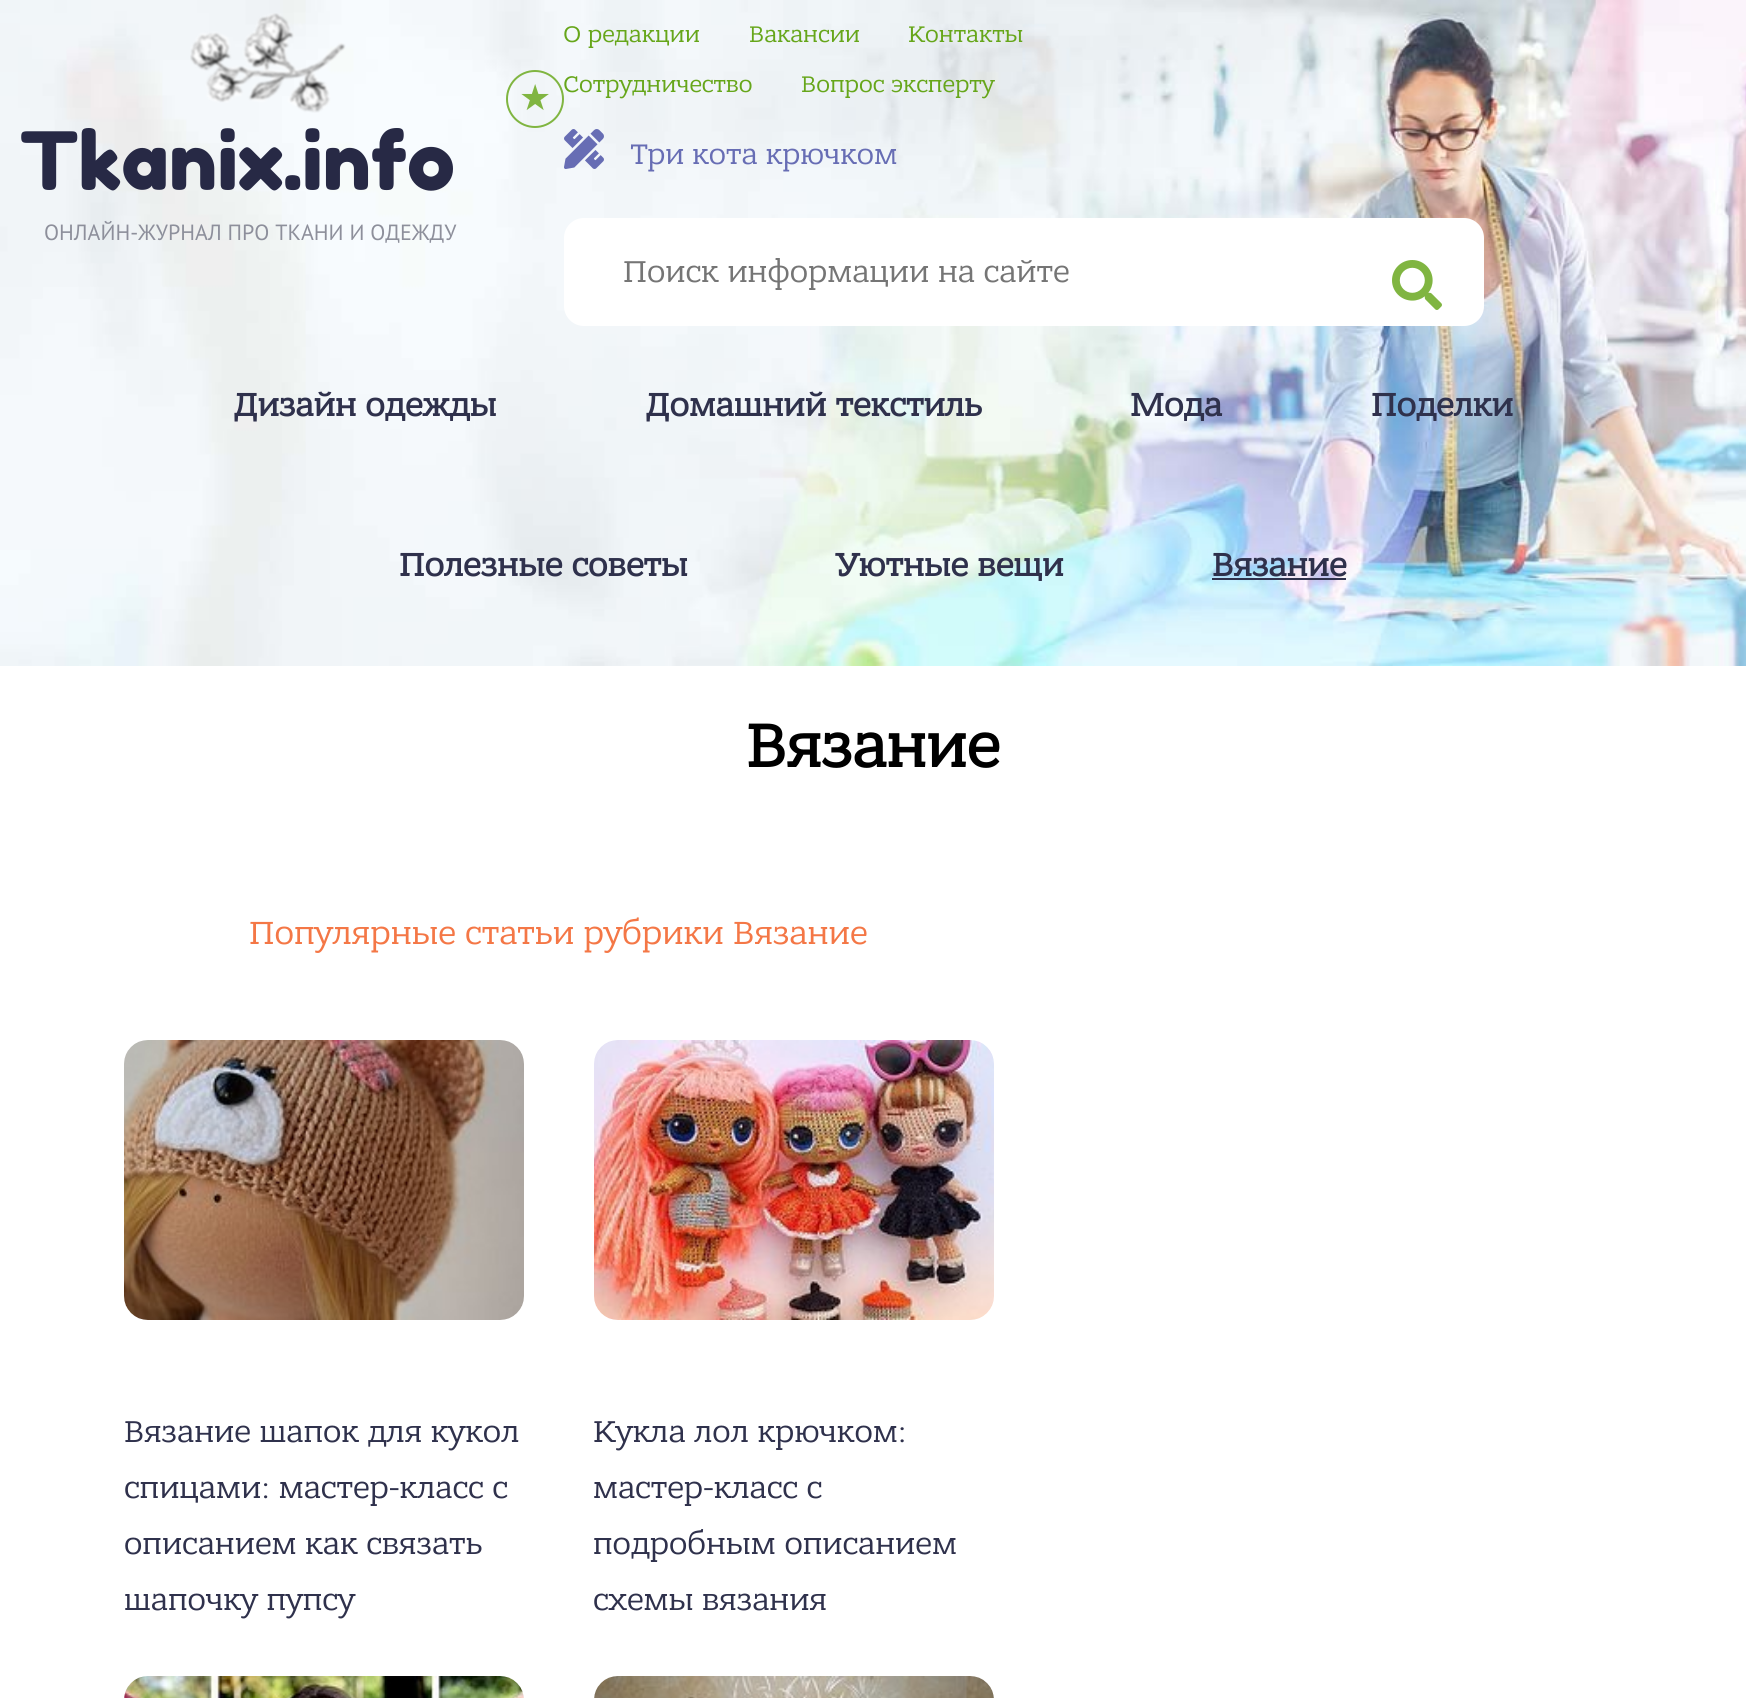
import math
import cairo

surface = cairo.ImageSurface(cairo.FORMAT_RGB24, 1746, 1698)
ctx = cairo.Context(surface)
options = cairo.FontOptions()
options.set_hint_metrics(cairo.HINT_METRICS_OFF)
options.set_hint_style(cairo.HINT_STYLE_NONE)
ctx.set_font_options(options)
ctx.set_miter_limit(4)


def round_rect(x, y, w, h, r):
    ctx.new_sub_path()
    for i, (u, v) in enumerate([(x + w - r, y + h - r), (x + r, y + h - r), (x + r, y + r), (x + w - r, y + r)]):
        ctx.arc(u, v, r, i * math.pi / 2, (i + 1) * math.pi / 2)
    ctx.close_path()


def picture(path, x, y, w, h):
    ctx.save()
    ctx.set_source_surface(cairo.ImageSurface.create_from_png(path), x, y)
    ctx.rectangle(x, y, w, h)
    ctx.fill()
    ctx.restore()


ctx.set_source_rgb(1, 1, 1)
ctx.paint()
picture("img1.png", 0, 0, 1746, 666)
ctx.arc(535, 99, 28, 0, 2 * math.pi)
ctx.set_source_rgb(0.502, 0.71, 0.255)
ctx.stroke()
ctx.select_font_face("DejaVu Sans")
ctx.set_font_size(36)
ctx.move_to(519, 110)
ctx.show_text("★")
picture("img2.png", 190, 13, 156, 100)
ctx.select_font_face("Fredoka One")
ctx.set_font_size(80)
ctx.set_source_rgb(0.153, 0.161, 0.271)
ctx.move_to(20, 190)
ctx.show_text("Tkanix.info")
ctx.select_font_face("PT Sans")
ctx.set_font_size(22)
ctx.set_source_rgb(0.553, 0.561, 0.608)
ctx.move_to(44, 240)
ctx.show_text("ОНЛАЙН-ЖУРНАЛ ПРО ТКАНИ И ОДЕЖДУ")
ctx.select_font_face("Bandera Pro")
ctx.set_font_size(24)
ctx.set_source_rgb(0.4, 0.651, 0.102)
ctx.move_to(563, 42)
ctx.show_text("О редакции")
ctx.move_to(749, 42)
ctx.show_text("Вакансии")
ctx.move_to(908, 42)
ctx.show_text("Контакты")
ctx.move_to(563, 92)
ctx.show_text("Сотрудничество")
ctx.move_to(801, 92)
ctx.show_text("Вопрос эксперту")
picture("img3.png", 564, 129, 40, 40)
ctx.set_font_size(30)
ctx.set_source_rgb(0.404, 0.427, 0.706)
ctx.move_to(631, 164)
ctx.show_text("Три кота крючком")
ctx.set_source_rgb(1, 1, 1)
round_rect(564, 218, 920, 108, 20)
ctx.fill()
ctx.set_font_size(32)
ctx.set_source_rgb(0.459, 0.459, 0.459)
ctx.move_to(623, 282)
ctx.show_text("Поиск информации на сайте")
picture("img4.png", 1392, 260, 50, 50)
ctx.select_font_face("Bandera Pro", cairo.FONT_SLANT_NORMAL, cairo.FONT_WEIGHT_BOLD)
ctx.set_font_size(34)
ctx.set_source_rgb(0.184, 0.192, 0.298)
ctx.move_to(233, 416)
ctx.show_text("Дизайн одежды")
ctx.move_to(645, 416)
ctx.show_text("Домашний текстиль")
ctx.move_to(1130, 416)
ctx.show_text("Мода")
ctx.move_to(1371, 416)
ctx.show_text("Поделки")
ctx.move_to(399, 576)
ctx.show_text("Полезные советы")
ctx.move_to(836, 576)
ctx.show_text("Уютные вещи")
ctx.move_to(1212, 576)
ctx.show_text("Вязание")
ctx.rectangle(1212, 578, 134, 2)
ctx.fill()
ctx.set_font_size(64)
ctx.set_source_rgb(0, 0, 0)
ctx.move_to(746, 767)
ctx.show_text("Вязание")
ctx.select_font_face("Bandera Pro")
ctx.set_font_size(34)
ctx.set_source_rgb(0.957, 0.467, 0.275)
ctx.move_to(249, 944)
ctx.show_text("Популярные статьи рубрики Вязание")
picture("img5.png", 124, 1040, 400, 280)
ctx.set_font_size(32)
ctx.set_source_rgb(0.184, 0.192, 0.298)
ctx.move_to(124, 1442)
ctx.show_text("Вязание шапок для кукол")
ctx.move_to(124, 1498)
ctx.show_text("спицами: мастер-класс с")
ctx.move_to(124, 1554)
ctx.show_text("описанием как связать")
ctx.move_to(124, 1610)
ctx.show_text("шапочку пупсу")
picture("img6.png", 594, 1040, 400, 280)
ctx.move_to(593, 1442)
ctx.show_text("Кукла лол крючком:")
ctx.move_to(593, 1498)
ctx.show_text("мастер-класс с")
ctx.move_to(593, 1554)
ctx.show_text("подробным описанием")
ctx.move_to(593, 1610)
ctx.show_text("схемы вязания")
picture("img7.png", 124, 1676, 400, 22)
picture("img8.png", 594, 1676, 400, 22)
surface.write_to_png("page.png")
